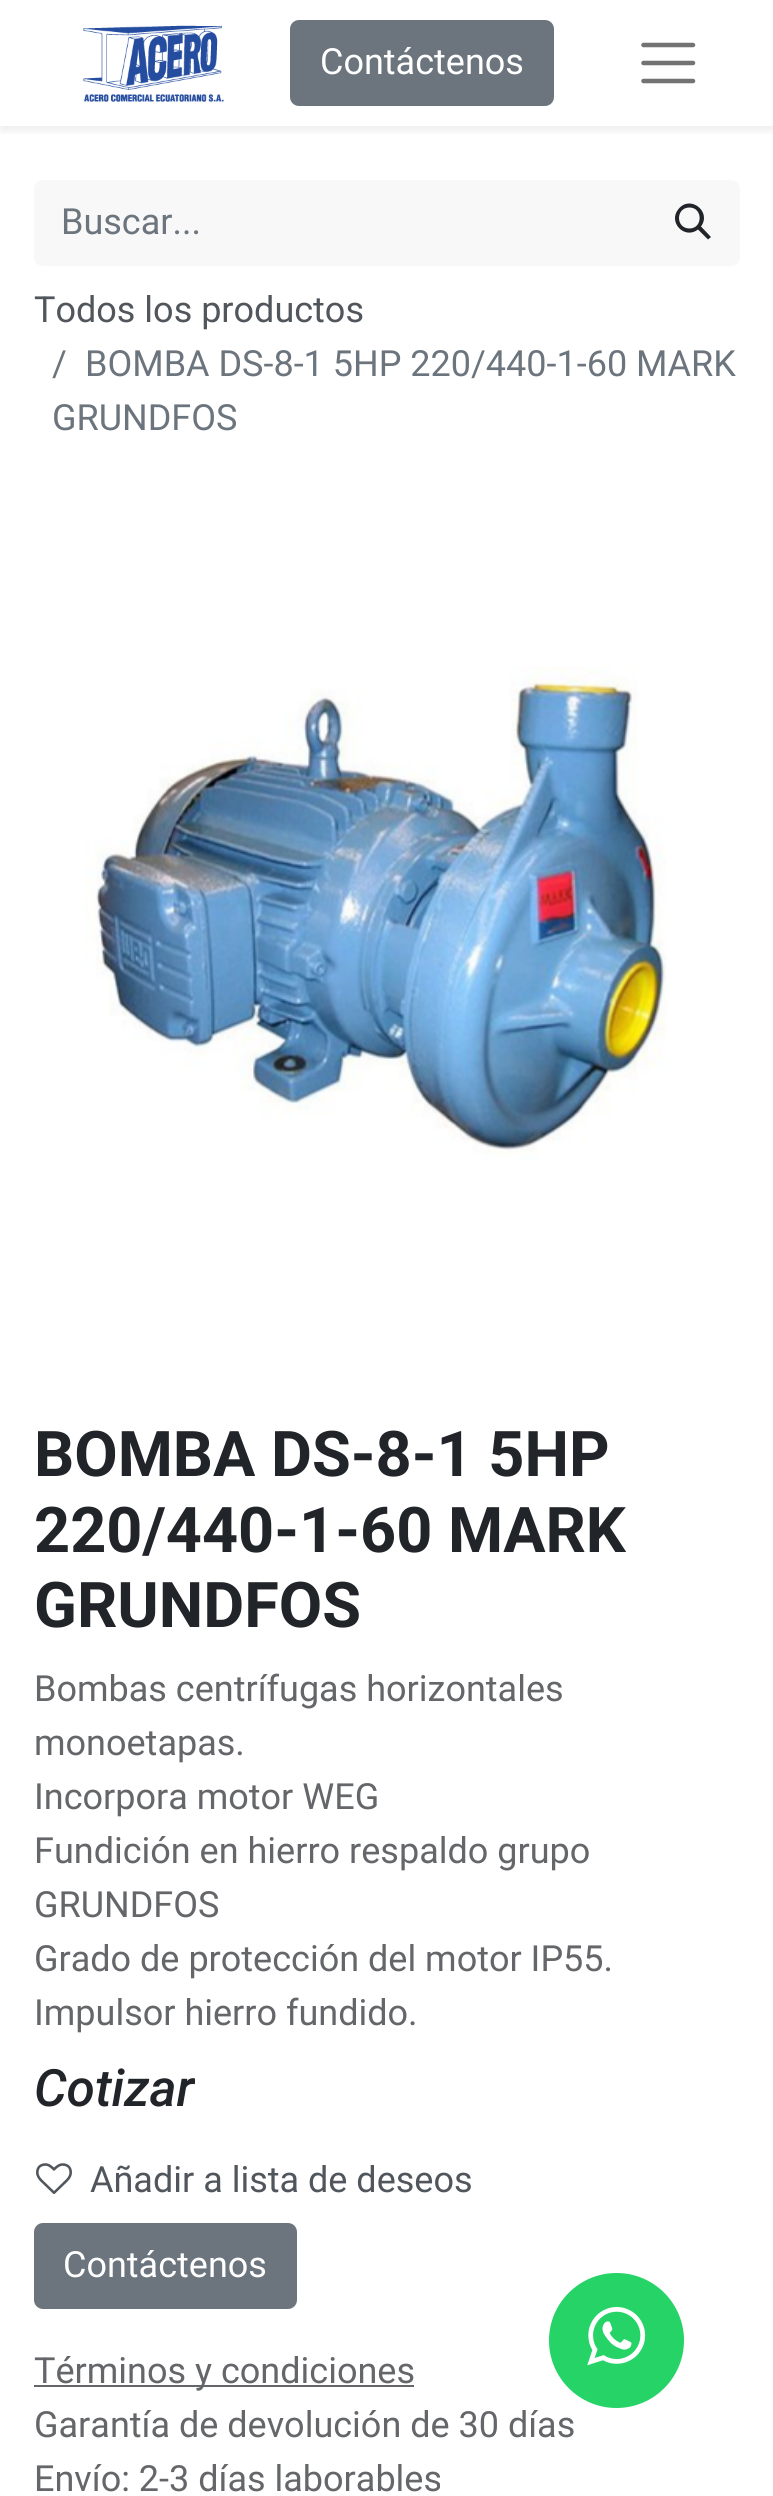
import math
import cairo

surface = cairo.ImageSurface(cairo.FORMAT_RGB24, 773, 2496)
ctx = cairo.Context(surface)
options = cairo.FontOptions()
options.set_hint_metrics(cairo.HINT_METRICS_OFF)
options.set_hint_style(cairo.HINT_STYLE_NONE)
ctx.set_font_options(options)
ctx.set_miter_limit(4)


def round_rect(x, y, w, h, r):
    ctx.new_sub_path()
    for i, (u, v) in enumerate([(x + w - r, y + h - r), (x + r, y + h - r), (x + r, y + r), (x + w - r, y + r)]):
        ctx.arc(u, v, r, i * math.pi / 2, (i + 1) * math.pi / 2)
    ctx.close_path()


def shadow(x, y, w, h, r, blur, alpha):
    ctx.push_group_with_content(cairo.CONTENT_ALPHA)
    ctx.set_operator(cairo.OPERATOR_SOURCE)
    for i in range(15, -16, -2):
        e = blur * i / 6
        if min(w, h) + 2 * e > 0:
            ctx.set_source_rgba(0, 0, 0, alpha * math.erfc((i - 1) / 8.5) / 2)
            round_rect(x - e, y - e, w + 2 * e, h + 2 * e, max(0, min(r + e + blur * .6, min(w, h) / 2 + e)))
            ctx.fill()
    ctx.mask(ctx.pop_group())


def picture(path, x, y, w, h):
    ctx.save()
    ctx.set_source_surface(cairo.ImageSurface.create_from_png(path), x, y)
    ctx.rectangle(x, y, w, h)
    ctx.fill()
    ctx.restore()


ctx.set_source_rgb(1, 1, 1)
ctx.paint()
ctx.save()
ctx.rectangle(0, 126, 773, 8)
ctx.clip()
ctx.set_source_rgb(0, 0, 0)
shadow(0, 5, 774, 126, 0, 4.5, 0.07)
ctx.restore()
picture("img1.png", 83, 25, 141, 77)
ctx.set_source_rgb(0.424, 0.459, 0.49)
round_rect(291, 21, 262, 84, 8)
ctx.fill_preserve()
ctx.stroke()
ctx.select_font_face("Roboto")
ctx.set_font_size(36)
ctx.set_source_rgb(1, 1, 1)
ctx.move_to(320, 74)
ctx.show_text("Contáctenos")
ctx.new_path()
ctx.move_to(643.5, 45)
ctx.line_to(693, 45)
ctx.move_to(643.5, 63)
ctx.line_to(693, 63)
ctx.move_to(643.5, 81)
ctx.line_to(693, 81)
ctx.set_source_rgb(0.451, 0.451, 0.451)
ctx.set_line_width(4.5)
ctx.set_line_cap(cairo.LINE_CAP_ROUND)
ctx.stroke()
ctx.set_source_rgb(0.969, 0.969, 0.969)
ctx.new_path()
ctx.move_to(43, 180)
ctx.line_to(648, 180)
ctx.line_to(648, 266)
ctx.line_to(43, 266)
ctx.curve_to(38, 266, 34, 262, 34, 257)
ctx.line_to(34, 189)
ctx.curve_to(34, 184, 38, 180, 43, 180)
ctx.close_path()
ctx.fill()
ctx.set_source_rgb(0.424, 0.459, 0.49)
ctx.move_to(61, 234)
ctx.show_text("Buscar...")
ctx.set_source_rgb(0.969, 0.969, 0.969)
ctx.new_path()
ctx.move_to(646, 180)
ctx.line_to(731, 180)
ctx.curve_to(736, 180, 740, 184, 740, 189)
ctx.line_to(740, 257)
ctx.curve_to(740, 262, 736, 266, 731, 266)
ctx.line_to(646, 266)
ctx.close_path()
ctx.fill()
ctx.set_source_rgb(0.129, 0.145, 0.161)
ctx.new_path()
ctx.move_to(678.5, 209)
ctx.curve_to(690, 194.5, 712, 211.5, 701, 226.5)
ctx.line_to(711, 237)
ctx.line_to(708, 239.5)
ctx.line_to(698, 229.5)
ctx.curve_to(684.5, 240, 667.5, 222, 678.5, 209)
ctx.close_path()
ctx.move_to(689.5, 207.5)
ctx.curve_to(675.5, 207.5, 675.5, 228.5, 689.5, 228.5)
ctx.curve_to(703, 228.5, 703, 207.5, 689.5, 207.5)
ctx.close_path()
ctx.fill()
ctx.set_source_rgb(0.314, 0.337, 0.361)
ctx.move_to(34, 322)
ctx.show_text("Todos los productos")
ctx.set_source_rgb(0.424, 0.459, 0.49)
ctx.move_to(52, 376)
ctx.show_text("/")
ctx.move_to(85, 376)
ctx.show_text("BOMBA DS-8-1 5HP 220/440-1-60 MARK")
ctx.move_to(52, 430)
ctx.show_text("GRUNDFOS")
picture("img2.png", 84, 666, 583, 494)
ctx.select_font_face("Roboto", cairo.FONT_SLANT_NORMAL, cairo.FONT_WEIGHT_BOLD)
ctx.set_font_size(63)
ctx.set_source_rgb(0.129, 0.145, 0.161)
ctx.move_to(34, 1476)
ctx.show_text("BOMBA DS-8-1 5HP")
ctx.move_to(34, 1552)
ctx.show_text("220/440-1-60 MARK")
ctx.move_to(34, 1627)
ctx.show_text("GRUNDFOS")
ctx.select_font_face("Roboto")
ctx.set_font_size(36)
ctx.set_source_rgb(0.392, 0.4, 0.412)
ctx.move_to(34, 1701)
ctx.show_text("Bombas centrífugas horizontales")
ctx.move_to(34, 1755)
ctx.show_text("monoetapas.")
ctx.move_to(34, 1809)
ctx.show_text("Incorpora motor WEG")
ctx.move_to(34, 1863)
ctx.show_text("Fundición en hierro respaldo grupo")
ctx.move_to(34, 1917)
ctx.show_text("GRUNDFOS")
ctx.move_to(34, 1971)
ctx.show_text("Grado de protección del motor IP55.")
ctx.move_to(34, 2025)
ctx.show_text("Impulsor hierro fundido.")
ctx.select_font_face("Roboto Medium", cairo.FONT_SLANT_ITALIC)
ctx.set_font_size(51.5)
ctx.set_source_rgb(0.129, 0.145, 0.161)
ctx.move_to(34, 2106)
ctx.show_text("Cotizar")
picture("img3.png", 36, 2163, 36, 31)
ctx.select_font_face("Roboto")
ctx.set_font_size(36)
ctx.set_source_rgb(0.314, 0.337, 0.361)
ctx.move_to(90, 2192)
ctx.show_text("Añadir a lista de deseos")
ctx.set_source_rgb(0.424, 0.459, 0.49)
round_rect(35, 2224, 261, 84, 8)
ctx.fill_preserve()
ctx.set_line_width(2)
ctx.set_line_cap(cairo.LINE_CAP_BUTT)
ctx.stroke()
ctx.set_source_rgb(1, 1, 1)
ctx.move_to(63, 2277)
ctx.show_text("Contáctenos")
ctx.set_source_rgb(0.392, 0.4, 0.412)
ctx.rectangle(34, 2385, 380, 2)
ctx.fill()
ctx.move_to(34, 2383)
ctx.show_text("Términos y condiciones")
ctx.move_to(34, 2437)
ctx.show_text("Garantía de devolución de 30 días")
ctx.move_to(34, 2491)
ctx.show_text("Envío: 2-3 días laborables")
ctx.set_source_rgb(0.145, 0.827, 0.4)
ctx.new_path()
ctx.arc(616.5, 2340.5, 67.5, 0, 2 * math.pi)
ctx.fill()
picture("img4.png", 587, 2307, 59, 59)
surface.write_to_png("page.png")
